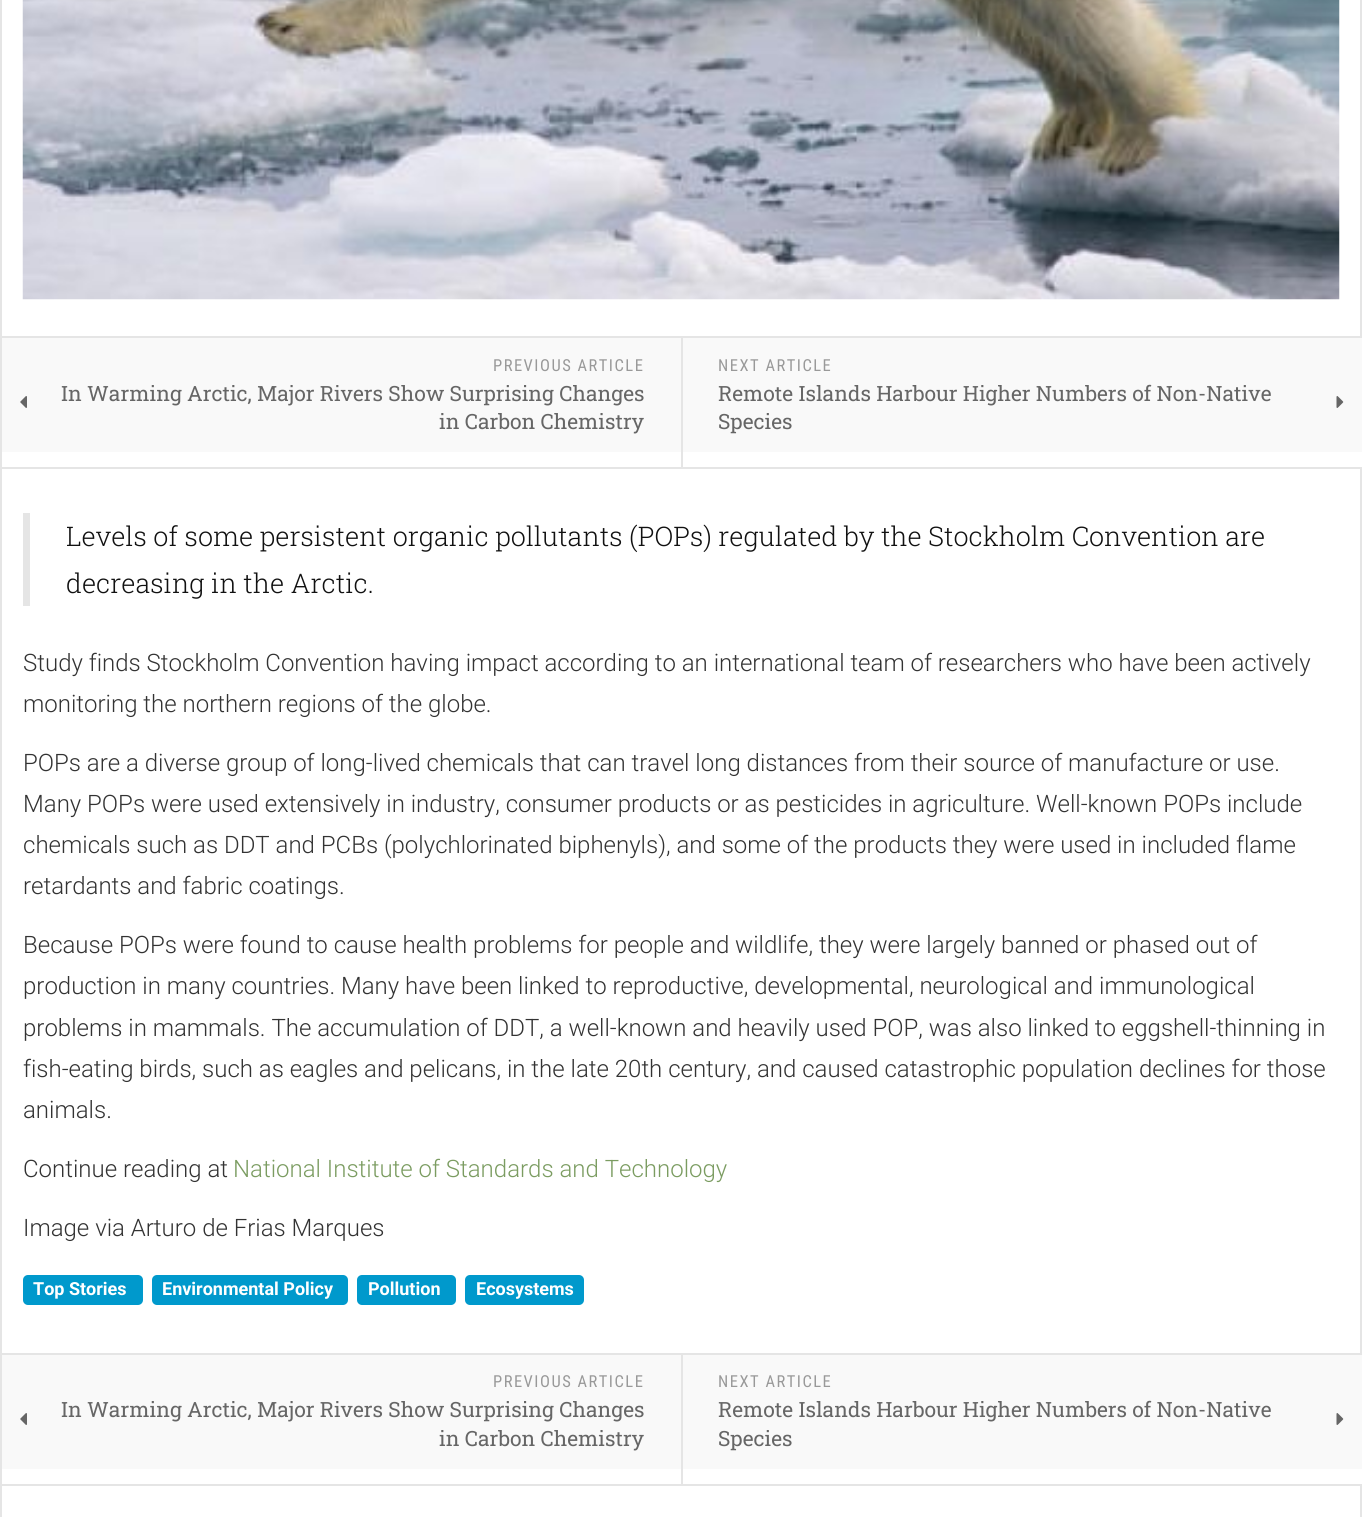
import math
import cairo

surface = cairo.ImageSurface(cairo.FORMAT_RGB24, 1362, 1517)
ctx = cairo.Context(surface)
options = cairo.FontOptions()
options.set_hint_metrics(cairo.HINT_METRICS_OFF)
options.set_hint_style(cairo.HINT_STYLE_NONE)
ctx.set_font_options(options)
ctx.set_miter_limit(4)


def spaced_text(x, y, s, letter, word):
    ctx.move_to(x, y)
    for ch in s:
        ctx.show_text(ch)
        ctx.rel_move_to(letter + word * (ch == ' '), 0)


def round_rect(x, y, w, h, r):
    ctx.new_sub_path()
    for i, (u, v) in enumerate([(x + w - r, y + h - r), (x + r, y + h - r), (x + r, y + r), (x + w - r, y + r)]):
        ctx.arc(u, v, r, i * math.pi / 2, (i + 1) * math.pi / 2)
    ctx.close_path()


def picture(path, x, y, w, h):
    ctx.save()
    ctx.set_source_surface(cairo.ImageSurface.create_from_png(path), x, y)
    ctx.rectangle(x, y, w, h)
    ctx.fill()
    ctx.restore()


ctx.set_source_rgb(1, 1, 1)
ctx.paint()
ctx.rectangle(1, -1, 1360, 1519)
ctx.set_source_rgb(0.898, 0.898, 0.898)
ctx.stroke()
picture("img1.png", 22, 0, 1318, 300)
ctx.set_source_rgb(1, 1, 1)
ctx.rectangle(1360, 452, 2, 15)
ctx.fill()
ctx.set_source_rgb(0.898, 0.898, 0.898)
ctx.rectangle(0, 336, 1362, 2)
ctx.fill()
ctx.rectangle(0, 467, 1362, 2)
ctx.fill()
ctx.rectangle(681, 338, 2, 129)
ctx.fill()
ctx.set_source_rgb(0.973, 0.973, 0.973)
ctx.rectangle(2, 338, 679, 114)
ctx.fill()
ctx.select_font_face("Roboto Condensed")
ctx.set_font_size(16.5)
ctx.set_source_rgb(0.6, 0.6, 0.6)
spaced_text(493, 371, "PREVIOUS ARTICLE", 1.5, 0)
picture("img2.png", 20, 396, 7, 12)
ctx.select_font_face("Roboto Slab")
ctx.set_font_size(21)
ctx.set_source_rgb(0.4, 0.4, 0.4)
ctx.move_to(61, 401)
ctx.show_text("In Warming Arctic, Major Rivers Show Surprising Changes")
ctx.move_to(439, 429)
ctx.show_text("in Carbon Chemistry")
ctx.set_source_rgb(0.973, 0.973, 0.973)
ctx.rectangle(683, 338, 679, 114)
ctx.fill()
ctx.select_font_face("Roboto Condensed")
ctx.set_font_size(16.5)
ctx.set_source_rgb(0.6, 0.6, 0.6)
spaced_text(718, 371, "NEXT ARTICLE", 1.5, 0)
ctx.select_font_face("Roboto Slab")
ctx.set_font_size(21)
ctx.set_source_rgb(0.4, 0.4, 0.4)
ctx.move_to(718, 401)
ctx.show_text("Remote Islands Harbour Higher Numbers of Non-Native")
picture("img3.png", 1336, 396, 8, 12)
ctx.move_to(718, 429)
ctx.show_text("Species")
ctx.set_source_rgb(0.898, 0.898, 0.898)
ctx.rectangle(23, 513, 7, 93)
ctx.fill()
ctx.select_font_face("Roboto Slab Light")
ctx.set_font_size(27)
ctx.set_source_rgb(0.067, 0.067, 0.067)
ctx.move_to(66, 546)
ctx.show_text("Levels of some persistent organic pollutants (POPs) regulated by the Stockholm Convention are")
ctx.move_to(66, 593)
ctx.show_text("decreasing in the Arctic.")
ctx.select_font_face("Roboto Light")
ctx.set_font_size(24)
ctx.set_source_rgb(0.2, 0.2, 0.2)
ctx.move_to(23, 671)
ctx.show_text("Study finds Stockholm Convention having impact according to an international team of researchers who have been actively")
ctx.move_to(23, 712)
ctx.show_text("monitoring the northern regions of the globe.")
ctx.move_to(23, 771)
ctx.show_text("POPs are a diverse group of long-lived chemicals that can travel long distances from their source of manufacture or use.")
ctx.move_to(23, 812)
ctx.show_text("Many POPs were used extensively in industry, consumer products or as pesticides in agriculture. Well-known POPs include")
ctx.move_to(23, 853)
ctx.show_text("chemicals such as DDT and PCBs (polychlorinated biphenyls), and some of the products they were used in included flame")
ctx.move_to(23, 894)
ctx.show_text("retardants and fabric coatings.")
ctx.move_to(23, 953)
ctx.show_text("Because POPs were found to cause health problems for people and wildlife, they were largely banned or phased out of")
ctx.move_to(23, 994)
ctx.show_text("production in many countries. Many have been linked to reproductive, developmental, neurological and immunological")
ctx.move_to(23, 1036)
ctx.show_text("problems in mammals. The accumulation of DDT, a well-known and heavily used POP, was also linked to eggshell-thinning in")
ctx.move_to(23, 1077)
ctx.show_text("fish-eating birds, such as eagles and pelicans, in the late 20th century, and caused catastrophic population declines for those")
ctx.move_to(23, 1118)
ctx.show_text("animals.")
ctx.move_to(23, 1177)
ctx.show_text("Continue reading at")
ctx.set_source_rgb(0.482, 0.612, 0.38)
ctx.move_to(233, 1177)
ctx.show_text("National Institute of Standards and Technology")
ctx.set_source_rgb(0.2, 0.2, 0.2)
ctx.move_to(23, 1236)
ctx.show_text("Image via Arturo de Frias Marques")
ctx.set_source_rgb(0, 0.6, 0.8)
round_rect(23, 1275, 120, 30, 5)
ctx.fill()
ctx.select_font_face("Roboto", cairo.FONT_SLANT_NORMAL, cairo.FONT_WEIGHT_BOLD)
ctx.set_font_size(18)
ctx.set_source_rgb(1, 1, 1)
ctx.move_to(33, 1295)
ctx.show_text("Top Stories")
ctx.set_source_rgb(0, 0.6, 0.8)
round_rect(152, 1275, 196, 30, 5)
ctx.fill()
ctx.set_source_rgb(1, 1, 1)
ctx.move_to(162, 1295)
ctx.show_text("Environmental Policy")
ctx.set_source_rgb(0, 0.6, 0.8)
round_rect(357, 1275, 99, 30, 5)
ctx.fill()
ctx.set_source_rgb(1, 1, 1)
ctx.move_to(368, 1295)
ctx.show_text("Pollution")
ctx.set_source_rgb(0, 0.6, 0.8)
round_rect(465, 1275, 119, 30, 5)
ctx.fill()
ctx.set_source_rgb(1, 1, 1)
ctx.move_to(476, 1295)
ctx.show_text("Ecosystems")
ctx.rectangle(1360, 1469, 2, 15)
ctx.fill()
ctx.set_source_rgb(0.898, 0.898, 0.898)
ctx.rectangle(0, 1353, 1362, 2)
ctx.fill()
ctx.rectangle(0, 1484, 1362, 2)
ctx.fill()
ctx.rectangle(681, 1355, 2, 129)
ctx.fill()
ctx.set_source_rgb(0.973, 0.973, 0.973)
ctx.rectangle(2, 1355, 679, 114)
ctx.fill()
ctx.select_font_face("Roboto Condensed")
ctx.set_font_size(16.5)
ctx.set_source_rgb(0.6, 0.6, 0.6)
spaced_text(493, 1387, "PREVIOUS ARTICLE", 1.5, 0)
picture("img2.png", 20, 1413, 7, 12)
ctx.select_font_face("Roboto Slab")
ctx.set_font_size(21)
ctx.set_source_rgb(0.4, 0.4, 0.4)
ctx.move_to(61, 1417)
ctx.show_text("In Warming Arctic, Major Rivers Show Surprising Changes")
ctx.move_to(439, 1446)
ctx.show_text("in Carbon Chemistry")
ctx.set_source_rgb(0.973, 0.973, 0.973)
ctx.rectangle(683, 1355, 679, 114)
ctx.fill()
ctx.select_font_face("Roboto Condensed")
ctx.set_font_size(16.5)
ctx.set_source_rgb(0.6, 0.6, 0.6)
spaced_text(718, 1387, "NEXT ARTICLE", 1.5, 0)
ctx.select_font_face("Roboto Slab")
ctx.set_font_size(21)
ctx.set_source_rgb(0.4, 0.4, 0.4)
ctx.move_to(718, 1417)
ctx.show_text("Remote Islands Harbour Higher Numbers of Non-Native")
picture("img3.png", 1336, 1413, 8, 12)
ctx.move_to(718, 1446)
ctx.show_text("Species")
surface.write_to_png("page.png")
